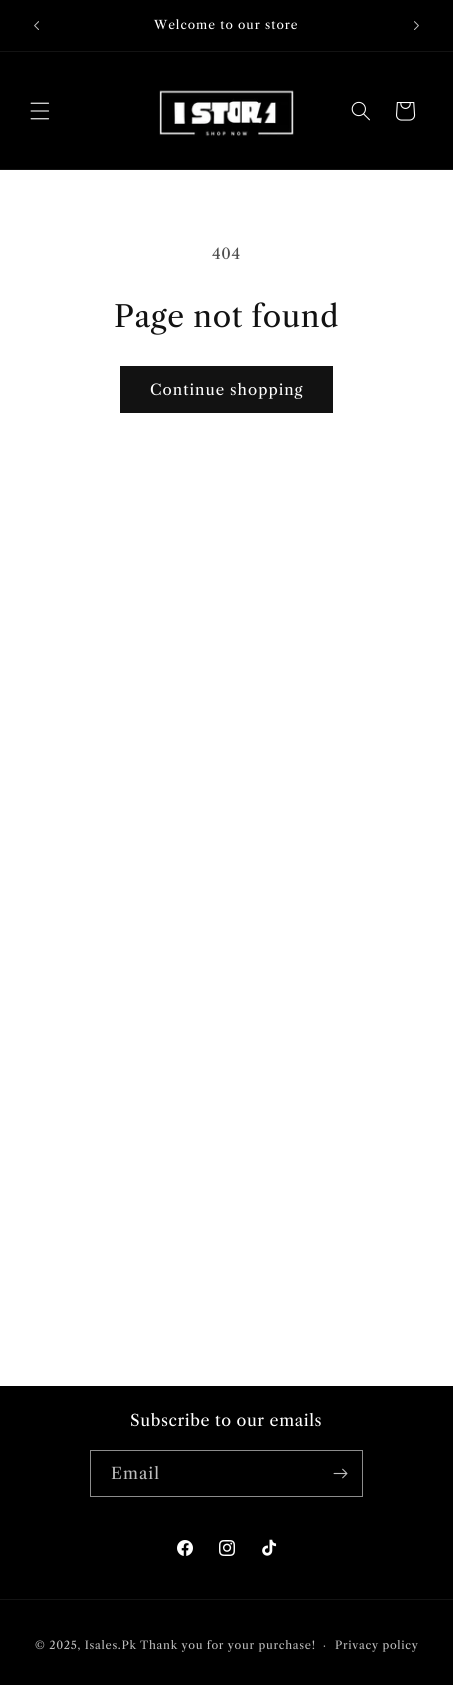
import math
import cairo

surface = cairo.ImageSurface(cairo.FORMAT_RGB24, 453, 1685)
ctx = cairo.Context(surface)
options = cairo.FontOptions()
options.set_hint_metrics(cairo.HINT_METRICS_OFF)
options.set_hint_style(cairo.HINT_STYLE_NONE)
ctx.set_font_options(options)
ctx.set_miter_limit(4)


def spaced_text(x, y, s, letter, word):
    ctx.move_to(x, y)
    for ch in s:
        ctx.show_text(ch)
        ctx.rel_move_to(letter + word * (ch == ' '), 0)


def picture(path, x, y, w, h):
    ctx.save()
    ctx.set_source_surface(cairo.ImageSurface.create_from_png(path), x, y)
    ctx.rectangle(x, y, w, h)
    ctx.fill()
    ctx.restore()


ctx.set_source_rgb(1, 1, 1)
ctx.paint()
ctx.set_source_rgb(0, 0, 0)
ctx.rectangle(0, 0, 453, 51)
ctx.fill()
ctx.set_source_rgb(0.078, 0.078, 0.078)
ctx.rectangle(0, 51, 453, 1)
ctx.fill()
picture("img1.png", 34, 21, 5, 9)
ctx.select_font_face("Libre Caslon Text")
ctx.set_font_size(12)
ctx.set_source_rgb(1, 1, 1)
spaced_text(154, 29, "Welcome to our store", 1, 0)
picture("img2.png", 414, 21, 5, 9)
ctx.set_source_rgb(0, 0, 0)
ctx.rectangle(0, 52, 453, 117)
ctx.fill()
ctx.set_source_rgb(0.078, 0.078, 0.078)
ctx.rectangle(0, 169, 453, 1)
ctx.fill()
picture("img3.png", 30, 102, 20, 18)
picture("img4.png", 159, 90, 135, 47)
picture("img5.png", 351, 101, 19, 20)
picture("img6.png", 396, 102, 20, 19)
ctx.set_font_size(15)
ctx.set_source_rgb(0.302, 0.302, 0.302)
spaced_text(212, 259, "404", 0.6, 0)
ctx.set_font_size(30)
ctx.set_source_rgb(0.071, 0.071, 0.071)
spaced_text(114, 327, "Page not found", 0.6, 0)
ctx.rectangle(120, 366, 213, 47)
ctx.fill()
ctx.set_font_size(15)
ctx.set_source_rgb(1, 1, 1)
spaced_text(150, 395, "Continue shopping", 1, 0)
ctx.set_source_rgb(0, 0, 0)
ctx.rectangle(0, 1386, 453, 299)
ctx.fill()
ctx.set_font_size(16)
ctx.set_source_rgb(1, 1, 1)
spaced_text(130, 1426, "Subscribe to our emails", 0.6, 0)
ctx.rectangle(90.5, 1450.5, 272, 46)
ctx.set_source_rgb(0.549, 0.549, 0.549)
ctx.set_line_width(1)
ctx.stroke()
ctx.set_source_rgb(0.749, 0.749, 0.749)
spaced_text(111, 1479, "Email", 1, 0)
picture("img7.png", 333, 1468, 15, 11)
picture("img8.png", 177, 1540, 16, 16)
picture("img9.png", 219, 1540, 16, 16)
picture("img10.png", 262, 1539, 15, 17)
ctx.set_source_rgb(0.078, 0.078, 0.078)
ctx.rectangle(0, 1599, 453, 1)
ctx.fill()
ctx.set_font_size(11)
ctx.set_source_rgb(0.749, 0.749, 0.749)
spaced_text(35, 1649, "© 2025, Isales.Pk Thank you for your purchase!", 0.7, 0)
ctx.set_font_size(10)
spaced_text(323, 1649, "·", 0.7, 0)
ctx.set_font_size(11)
spaced_text(335, 1649, "Privacy policy", 0.7, 0)
surface.write_to_png("page.png")
